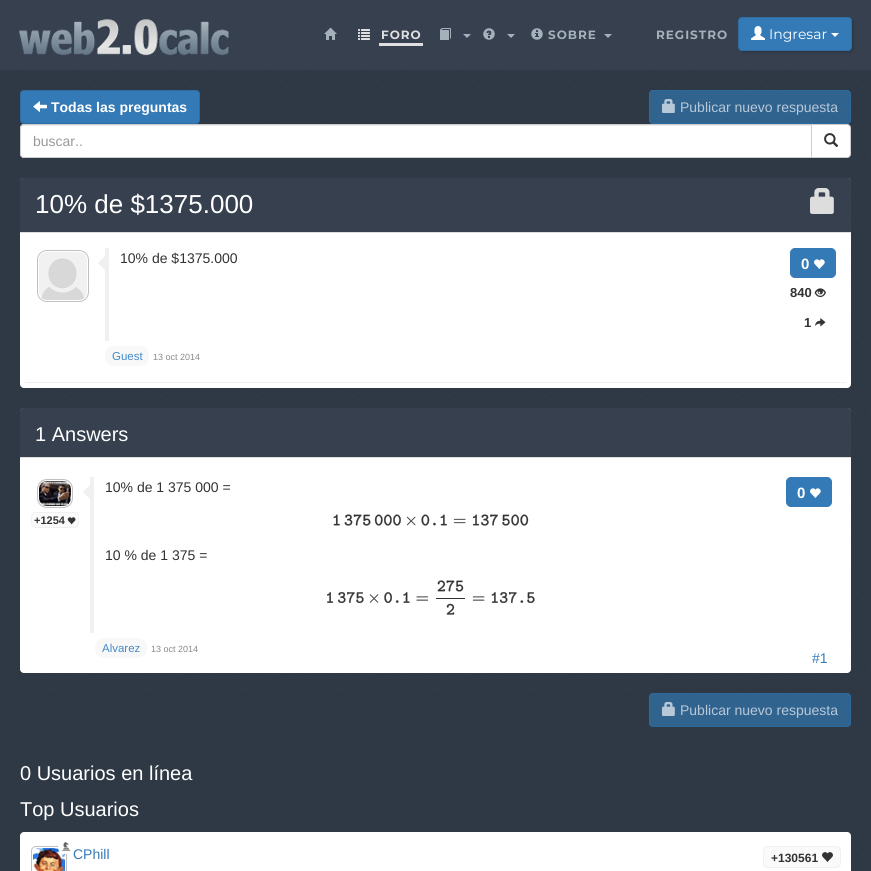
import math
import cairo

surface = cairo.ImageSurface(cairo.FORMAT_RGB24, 871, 871)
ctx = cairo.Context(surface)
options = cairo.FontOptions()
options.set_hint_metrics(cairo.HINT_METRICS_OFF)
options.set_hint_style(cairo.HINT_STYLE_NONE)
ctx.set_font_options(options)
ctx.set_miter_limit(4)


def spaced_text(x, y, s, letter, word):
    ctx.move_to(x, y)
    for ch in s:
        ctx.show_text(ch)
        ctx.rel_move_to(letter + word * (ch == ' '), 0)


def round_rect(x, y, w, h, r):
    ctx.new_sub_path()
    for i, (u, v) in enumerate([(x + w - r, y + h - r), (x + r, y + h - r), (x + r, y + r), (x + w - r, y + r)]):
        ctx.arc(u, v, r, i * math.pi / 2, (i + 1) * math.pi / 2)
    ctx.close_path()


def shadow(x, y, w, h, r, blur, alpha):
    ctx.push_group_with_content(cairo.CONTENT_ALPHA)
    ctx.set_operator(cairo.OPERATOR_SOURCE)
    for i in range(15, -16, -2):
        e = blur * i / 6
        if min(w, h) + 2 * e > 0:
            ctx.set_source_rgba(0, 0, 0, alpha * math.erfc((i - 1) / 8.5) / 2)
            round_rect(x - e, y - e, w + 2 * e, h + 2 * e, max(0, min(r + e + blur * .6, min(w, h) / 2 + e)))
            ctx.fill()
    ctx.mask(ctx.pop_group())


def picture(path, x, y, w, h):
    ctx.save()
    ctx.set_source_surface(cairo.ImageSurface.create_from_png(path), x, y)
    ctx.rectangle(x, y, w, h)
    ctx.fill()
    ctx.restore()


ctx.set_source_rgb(1, 1, 1)
ctx.paint()
picture("img1.png", 0, 70, 871, 801)
ctx.set_source_rgb(0.212, 0.251, 0.31)
ctx.rectangle(0, 0, 871, 70)
ctx.fill()
picture("img2.png", 19, 19, 211, 37)
picture("img3.png", 324, 27, 13, 13)
picture("img4.png", 358, 29, 12, 11)
ctx.select_font_face("Montserrat", cairo.FONT_SLANT_NORMAL, cairo.FONT_WEIGHT_BOLD)
ctx.set_font_size(12)
ctx.set_source_rgb(0.878, 0.878, 0.878)
spaced_text(381, 39, "FORO", 1, 0)
ctx.rectangle(379, 43, 44, 3)
ctx.fill()
picture("img5.png", 440, 28, 11, 12)
ctx.set_source_rgb(0.643, 0.69, 0.729)
ctx.new_path()
ctx.move_to(463, 34)
ctx.line_to(471, 34)
ctx.line_to(467, 38)
ctx.close_path()
ctx.fill()
picture("img6.png", 483, 28, 12, 12)
ctx.new_path()
ctx.move_to(507, 34)
ctx.line_to(515, 34)
ctx.line_to(511, 38)
ctx.close_path()
ctx.fill()
picture("img7.png", 531, 28, 12, 12)
spaced_text(548, 39, "SOBRE", 1, 0)
ctx.new_path()
ctx.move_to(604, 34)
ctx.line_to(612, 34)
ctx.line_to(608, 38)
ctx.close_path()
ctx.fill()
spaced_text(656, 39, "REGISTRO", 1, 0)
ctx.set_source_rgb(0, 0, 0)
shadow(740, 19, 114, 34, 4, 1, 0.13)
ctx.set_source_rgb(0.2, 0.478, 0.718)
round_rect(738.5, 17.5, 113, 33, 3.5)
ctx.fill_preserve()
ctx.set_source_rgb(0.18, 0.427, 0.643)
ctx.set_line_width(1)
ctx.stroke()
picture("img8.png", 751, 26, 14, 14)
ctx.select_font_face("Montserrat")
ctx.set_font_size(14)
ctx.set_source_rgb(1, 1, 1)
ctx.move_to(769, 39)
ctx.show_text("Ingresar")
ctx.new_path()
ctx.move_to(831, 33)
ctx.line_to(839, 33)
ctx.line_to(835, 37)
ctx.close_path()
ctx.fill()
ctx.set_source_rgb(0.2, 0.478, 0.718)
round_rect(20.5, 90.5, 179, 33, 3.5)
ctx.fill_preserve()
ctx.set_source_rgb(0.18, 0.427, 0.643)
ctx.stroke()
picture("img9.png", 33, 101, 14, 11)
ctx.select_font_face("Liberation Sans", cairo.FONT_SLANT_NORMAL, cairo.FONT_WEIGHT_BOLD)
ctx.set_source_rgb(1, 1, 1)
ctx.move_to(51, 112)
ctx.show_text("Todas las preguntas")
ctx.set_source_rgba(0.2, 0.478, 0.718, 0.65)
round_rect(649, 90, 202, 34, 4)
ctx.fill()
round_rect(649.5, 90.5, 201, 33, 3.5)
ctx.set_source_rgba(0.18, 0.427, 0.643, 0.65)
ctx.stroke()
picture("img10.png", 662, 99, 13, 14)
ctx.select_font_face("Liberation Sans")
ctx.set_source_rgb(0.718, 0.784, 0.847)
ctx.move_to(680, 112)
ctx.show_text("Publicar nuevo respuesta")
ctx.set_source_rgb(1, 1, 1)
ctx.new_path()
ctx.move_to(24, 124)
ctx.line_to(812, 124)
ctx.line_to(812, 158)
ctx.line_to(24, 158)
ctx.curve_to(22, 158, 20, 156, 20, 154)
ctx.line_to(20, 128)
ctx.curve_to(20, 126, 22, 124, 24, 124)
ctx.close_path()
ctx.fill()
ctx.set_source_rgb(0.925, 0.925, 0.925)
ctx.new_path()
ctx.move_to(24, 126)
ctx.line_to(811, 126)
ctx.line_to(811, 125)
ctx.line_to(24, 125)
ctx.curve_to(22, 125, 21, 127, 21, 129)
ctx.curve_to(21, 127, 22, 126, 24, 126)
ctx.close_path()
ctx.fill()
ctx.new_path()
ctx.move_to(24, 124.5)
ctx.line_to(811.5, 124.5)
ctx.line_to(811.5, 157.5)
ctx.line_to(24, 157.5)
ctx.curve_to(22, 157.5, 20.5, 156, 20.5, 154)
ctx.line_to(20.5, 128)
ctx.curve_to(20.5, 126, 22, 124.5, 24, 124.5)
ctx.close_path()
ctx.set_source_rgb(0.8, 0.8, 0.8)
ctx.stroke()
ctx.set_source_rgb(0.6, 0.6, 0.6)
ctx.move_to(33, 146)
ctx.show_text("buscar..")
ctx.set_source_rgb(1, 1, 1)
ctx.new_path()
ctx.move_to(811.5, 124.5)
ctx.line_to(847, 124.5)
ctx.curve_to(849, 124.5, 850.5, 126, 850.5, 128)
ctx.line_to(850.5, 154)
ctx.curve_to(850.5, 156, 849, 157.5, 847, 157.5)
ctx.line_to(811.5, 157.5)
ctx.close_path()
ctx.fill_preserve()
ctx.set_source_rgb(0.8, 0.8, 0.8)
ctx.stroke()
picture("img11.png", 824, 133, 15, 14)
ctx.set_source_rgb(1, 1, 1)
round_rect(20, 178, 831, 210, 4)
ctx.fill()
ctx.set_source_rgb(0.212, 0.251, 0.31)
ctx.new_path()
ctx.move_to(23, 178)
ctx.line_to(848, 178)
ctx.curve_to(849.5, 178, 851, 179.5, 851, 181)
ctx.line_to(851, 233)
ctx.line_to(20, 233)
ctx.line_to(20, 181)
ctx.curve_to(20, 179.5, 21.5, 178, 23, 178)
ctx.close_path()
ctx.fill()
ctx.set_source_rgb(0.867, 0.867, 0.867)
ctx.rectangle(20, 232, 831, 1)
ctx.fill()
ctx.set_font_size(26)
ctx.set_source_rgb(1, 1, 1)
ctx.move_to(35, 213)
ctx.show_text("10% de $1375.000")
picture("img12.png", 810, 188, 24, 26)
ctx.set_source_rgb(0.941, 0.941, 0.941)
ctx.rectangle(25, 382, 821, 1)
ctx.fill()
round_rect(37.5, 250.5, 51, 51, 9.5)
ctx.set_source_rgb(0.753, 0.753, 0.753)
ctx.stroke()
picture("img13.png", 39, 252, 48, 48)
ctx.set_source_rgb(0.941, 0.941, 0.941)
ctx.rectangle(105, 248, 4, 93)
ctx.fill()
ctx.new_path()
ctx.move_to(105, 256)
ctx.line_to(105, 270)
ctx.line_to(98, 263)
ctx.close_path()
ctx.fill()
ctx.set_font_size(14)
ctx.set_source_rgb(0.2, 0.2, 0.2)
ctx.move_to(120, 263)
ctx.show_text("10% de $1375.000")
ctx.set_source_rgb(0.2, 0.478, 0.718)
round_rect(790.5, 248.5, 45, 29, 4.5)
ctx.fill_preserve()
ctx.stroke()
ctx.select_font_face("Liberation Sans", cairo.FONT_SLANT_NORMAL, cairo.FONT_WEIGHT_BOLD)
ctx.set_font_size(15)
ctx.set_source_rgb(1, 1, 1)
ctx.move_to(801, 269)
ctx.show_text("0")
picture("img14.png", 814, 259, 11, 10)
ctx.set_font_size(13)
ctx.set_source_rgb(0.2, 0.2, 0.2)
ctx.move_to(790, 297)
ctx.show_text("840")
picture("img15.png", 814, 288, 12, 10)
ctx.move_to(804, 327)
ctx.show_text("1")
picture("img16.png", 815, 318, 11, 9)
ctx.set_source_rgb(0.969, 0.969, 0.969)
round_rect(105, 346, 44, 20, 9)
ctx.fill()
ctx.select_font_face("Liberation Sans")
ctx.set_font_size(11.5)
ctx.set_source_rgb(0.259, 0.545, 0.792)
ctx.move_to(112, 360)
ctx.show_text("Guest")
ctx.set_font_size(9)
ctx.set_source_rgb(0.533, 0.533, 0.533)
ctx.move_to(153, 360)
ctx.show_text("13 oct 2014")
ctx.set_source_rgb(1, 1, 1)
round_rect(20, 408, 831, 265, 4)
ctx.fill()
ctx.set_source_rgb(0.212, 0.251, 0.31)
ctx.new_path()
ctx.move_to(23, 408)
ctx.line_to(848, 408)
ctx.curve_to(849.5, 408, 851, 409.5, 851, 411)
ctx.line_to(851, 458)
ctx.line_to(20, 458)
ctx.line_to(20, 411)
ctx.curve_to(20, 409.5, 21.5, 408, 23, 408)
ctx.close_path()
ctx.fill()
ctx.set_source_rgb(0.867, 0.867, 0.867)
ctx.rectangle(20, 457, 831, 1)
ctx.fill()
ctx.set_font_size(20)
ctx.set_source_rgb(1, 1, 1)
ctx.move_to(35, 441)
ctx.show_text("1 Answers")
ctx.set_source_rgb(0.941, 0.941, 0.941)
ctx.rectangle(90, 477, 4, 156)
ctx.fill()
ctx.new_path()
ctx.move_to(90, 485)
ctx.line_to(90, 499)
ctx.line_to(83, 492)
ctx.close_path()
ctx.fill()
ctx.set_font_size(14)
ctx.set_source_rgb(0.2, 0.2, 0.2)
ctx.move_to(105, 492)
ctx.show_text("10% de 1 375 000 =")
picture("img17.png", 333, 514, 196, 12)
ctx.move_to(105, 560)
ctx.show_text("10 % de 1 375 =")
picture("img18.png", 327, 580, 208, 35)
ctx.set_source_rgb(0.2, 0.478, 0.718)
round_rect(786.5, 477.5, 45, 29, 4.5)
ctx.fill_preserve()
ctx.stroke()
ctx.select_font_face("Liberation Sans", cairo.FONT_SLANT_NORMAL, cairo.FONT_WEIGHT_BOLD)
ctx.set_font_size(15)
ctx.set_source_rgb(1, 1, 1)
ctx.move_to(797, 498)
ctx.show_text("0")
picture("img14.png", 810, 488, 11, 10)
round_rect(37.5, 479.5, 35, 28, 9.5)
ctx.set_source_rgb(0.753, 0.753, 0.753)
ctx.stroke()
picture("img19.png", 39, 481, 32, 25)
ctx.set_source_rgb(0.98, 0.98, 0.98)
round_rect(31.5, 512.5, 47, 15, 4.5)
ctx.fill_preserve()
ctx.set_source_rgb(0.941, 0.941, 0.941)
ctx.stroke()
ctx.set_font_size(11)
ctx.set_source_rgb(0.2, 0.2, 0.2)
ctx.move_to(34, 524)
ctx.show_text("+1254")
picture("img20.png", 67, 517, 9, 8)
ctx.set_source_rgb(0.969, 0.969, 0.969)
round_rect(95, 638, 52, 20, 9)
ctx.fill()
ctx.select_font_face("Liberation Sans")
ctx.set_font_size(11.5)
ctx.set_source_rgb(0.259, 0.545, 0.792)
ctx.move_to(102, 652)
ctx.show_text("Alvarez")
ctx.set_font_size(9)
ctx.set_source_rgb(0.533, 0.533, 0.533)
ctx.move_to(151, 652)
ctx.show_text("13 oct 2014")
ctx.set_font_size(14)
ctx.set_source_rgb(0.2, 0.478, 0.718)
ctx.move_to(812, 663)
ctx.show_text("#1")
ctx.set_source_rgba(0.2, 0.478, 0.718, 0.65)
round_rect(649, 693, 202, 34, 4)
ctx.fill()
round_rect(649.5, 693.5, 201, 33, 3.5)
ctx.set_source_rgba(0.18, 0.427, 0.643, 0.65)
ctx.stroke()
picture("img21.png", 662, 702, 13, 14)
ctx.set_source_rgb(0.718, 0.784, 0.847)
ctx.move_to(680, 715)
ctx.show_text("Publicar nuevo respuesta")
ctx.set_font_size(20)
ctx.set_source_rgb(1, 1, 1)
ctx.move_to(20, 780)
ctx.show_text("0 Usuarios en línea")
ctx.move_to(20, 816)
ctx.show_text("Top Usuarios")
round_rect(20, 832, 831, 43, 4)
ctx.fill()
round_rect(31.5, 846.5, 35, 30, 4.5)
ctx.set_source_rgb(0.753, 0.753, 0.753)
ctx.stroke()
picture("img23.png", 33, 848, 32, 23)
ctx.set_font_size(14)
ctx.set_source_rgb(0.2, 0.478, 0.718)
ctx.move_to(73, 859)
ctx.show_text("CPhill")
ctx.set_source_rgb(1, 1, 1)
round_rect(58, 840, 16, 14, 7)
ctx.fill()
picture("img22.png", 62, 842, 9, 9)
ctx.set_source_rgb(0.98, 0.98, 0.98)
round_rect(763.5, 846.5, 77, 21, 4.5)
ctx.fill_preserve()
ctx.set_source_rgb(0.941, 0.941, 0.941)
ctx.stroke()
ctx.select_font_face("Liberation Sans", cairo.FONT_SLANT_NORMAL, cairo.FONT_WEIGHT_BOLD)
ctx.set_font_size(12)
ctx.set_source_rgb(0.2, 0.2, 0.2)
ctx.move_to(771, 862)
ctx.show_text("+130561")
picture("img24.png", 822, 852, 11, 10)
surface.write_to_png("page.png")
